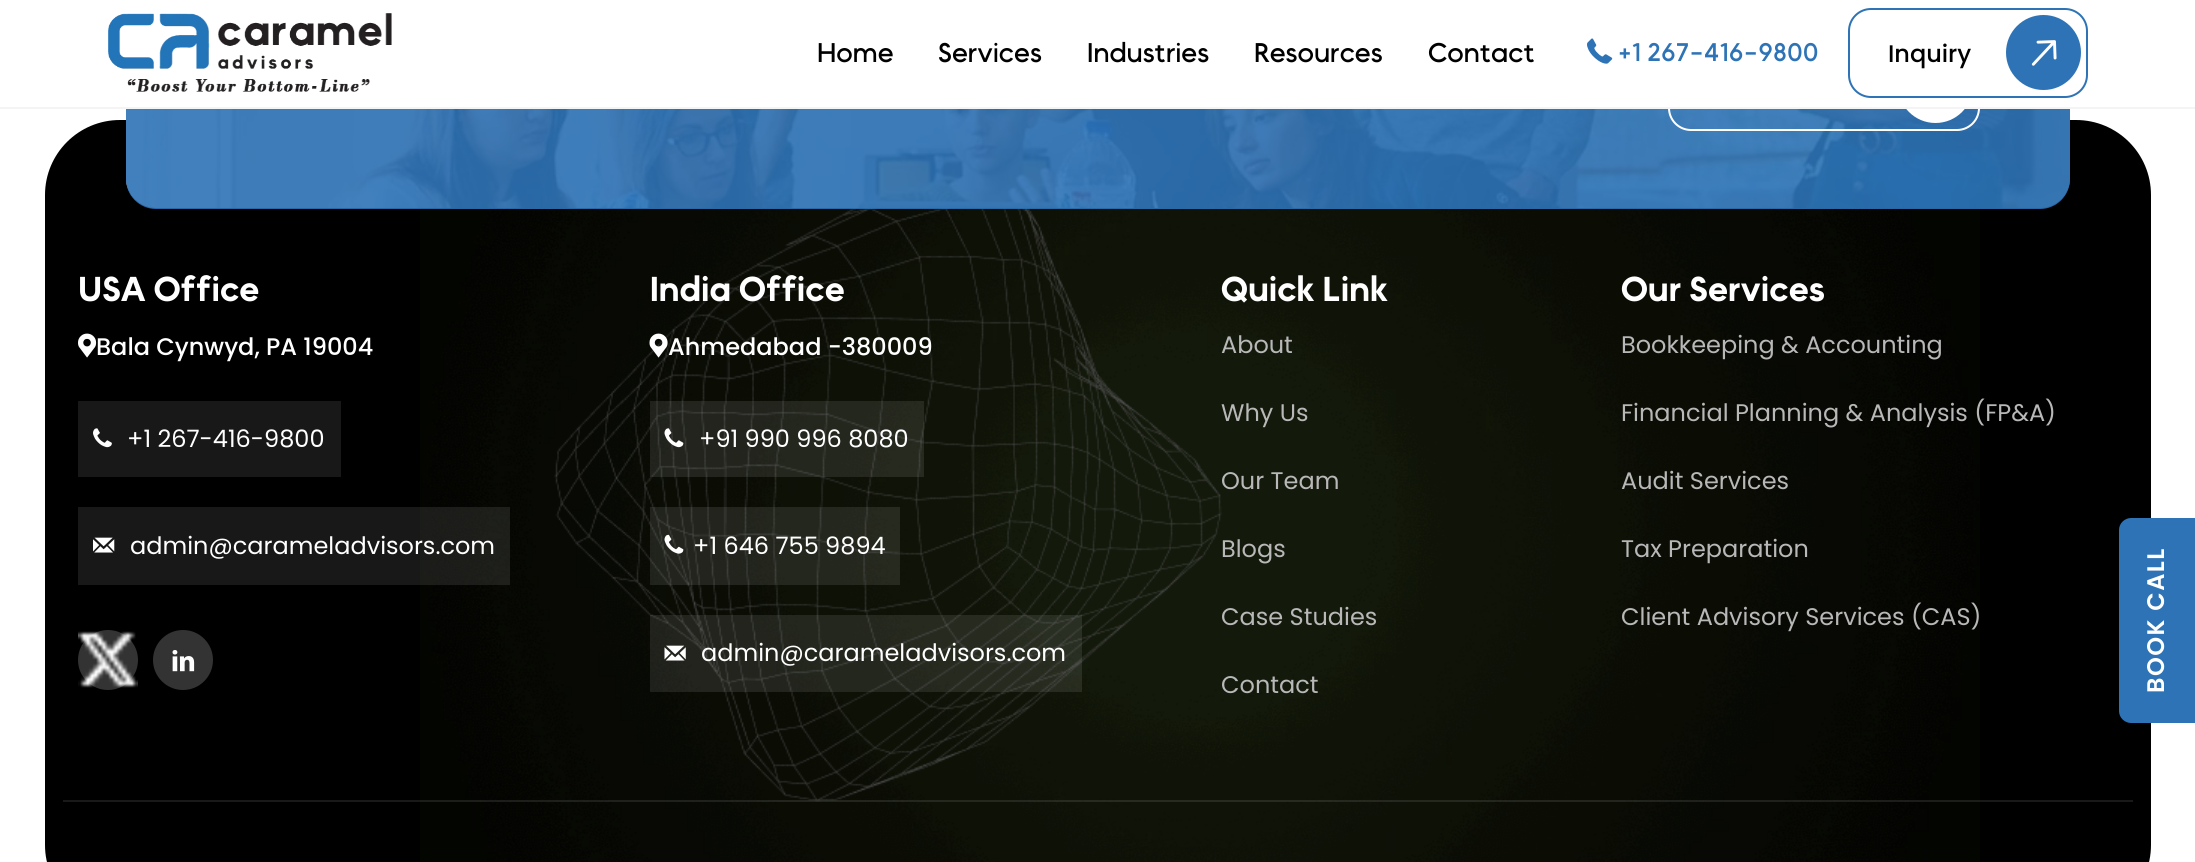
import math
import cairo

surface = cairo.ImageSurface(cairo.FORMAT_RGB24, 2195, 862)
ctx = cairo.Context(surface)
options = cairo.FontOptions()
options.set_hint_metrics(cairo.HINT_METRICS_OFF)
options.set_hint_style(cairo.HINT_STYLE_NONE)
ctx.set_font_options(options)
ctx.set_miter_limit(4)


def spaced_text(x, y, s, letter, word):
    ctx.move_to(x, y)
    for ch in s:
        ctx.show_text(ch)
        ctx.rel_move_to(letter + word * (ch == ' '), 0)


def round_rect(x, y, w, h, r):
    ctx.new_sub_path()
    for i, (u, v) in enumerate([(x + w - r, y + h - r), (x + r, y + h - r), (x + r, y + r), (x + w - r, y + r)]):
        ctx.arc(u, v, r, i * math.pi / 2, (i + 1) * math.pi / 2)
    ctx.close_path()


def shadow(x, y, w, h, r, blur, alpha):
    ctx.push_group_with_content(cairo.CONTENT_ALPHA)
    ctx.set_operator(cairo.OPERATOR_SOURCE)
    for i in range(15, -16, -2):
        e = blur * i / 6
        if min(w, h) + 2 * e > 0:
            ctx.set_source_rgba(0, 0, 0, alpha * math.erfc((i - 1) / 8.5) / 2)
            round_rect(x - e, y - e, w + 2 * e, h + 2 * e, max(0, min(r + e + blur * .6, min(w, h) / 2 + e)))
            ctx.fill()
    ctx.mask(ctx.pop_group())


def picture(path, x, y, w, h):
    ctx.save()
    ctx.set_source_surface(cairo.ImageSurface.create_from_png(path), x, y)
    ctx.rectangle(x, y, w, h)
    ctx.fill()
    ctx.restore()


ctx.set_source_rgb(1, 1, 1)
ctx.paint()
ctx.set_source_rgb(0, 0, 0)
round_rect(45, 120, 2106, 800, 75)
ctx.fill()
picture("img1.png", 126, 109, 1944, 99)
picture("img5.png", 420, 208, 1560, 654)
ctx.set_source_rgba(1, 1, 1, 0.1)
ctx.rectangle(63, 800, 2070, 2)
ctx.fill()
picture("img6.png", 554, 208, 668, 594)
ctx.set_source_rgba(0.176, 0.451, 0.714, 0.9)
round_rect(126, -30, 1944, 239, 30)
ctx.fill()
round_rect(1669, 42, 310, 88, 22)
ctx.set_source_rgb(1, 1, 1)
ctx.stroke()
ctx.arc(1935.5, 85.5, 37.5, 0, 2 * math.pi)
ctx.fill()
ctx.rectangle(126, 0, 1944, 107)
ctx.fill()
ctx.set_source_rgb(0.957, 0.957, 0.957)
ctx.rectangle(0, 107, 2195, 2)
ctx.fill()
picture("img2.png", 108, 13, 284, 79)
ctx.select_font_face("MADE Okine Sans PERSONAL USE")
ctx.set_font_size(27)
ctx.set_source_rgb(0, 0, 0)
ctx.move_to(817, 62)
ctx.show_text("Home")
ctx.move_to(938, 62)
ctx.show_text("Services")
ctx.move_to(1087, 62)
ctx.show_text("Industries")
ctx.move_to(1254, 62)
ctx.show_text("Resources")
ctx.move_to(1428, 62)
ctx.show_text("Contact")
picture("img3.png", 1587, 38, 26, 26)
ctx.set_font_size(25.5)
ctx.set_source_rgb(0.176, 0.451, 0.714)
ctx.move_to(1618, 61)
ctx.show_text("+1 267-416-9800")
round_rect(1849, 9, 238, 88, 22)
ctx.stroke()
ctx.select_font_face("Poppins Medium")
ctx.set_font_size(24)
ctx.set_source_rgb(0, 0, 0)
ctx.move_to(1888, 62)
ctx.show_text("Inquiry")
ctx.set_source_rgb(0.176, 0.451, 0.714)
ctx.new_path()
ctx.arc(2043.5, 52.5, 37.5, 0, 2 * math.pi)
ctx.fill()
picture("img4.png", 2031, 40, 26, 26)
ctx.set_source_rgb(0.094, 0.094, 0.098)
ctx.rectangle(78, 401, 263, 76)
ctx.fill()
ctx.select_font_face("MADE Okine Sans PERSONAL USE Medium")
ctx.set_font_size(34.5)
ctx.set_source_rgb(1, 1, 1)
ctx.move_to(78, 301)
ctx.show_text("USA Office")
picture("img7.png", 78, 333, 19, 25)
ctx.select_font_face("Poppins Medium")
ctx.set_font_size(24)
ctx.move_to(96, 355)
ctx.show_text("Bala Cynwyd, PA 19004")
picture("img8.png", 93, 428, 19, 20)
ctx.select_font_face("Poppins")
ctx.move_to(127, 447)
ctx.show_text("+1 267-416-9800")
ctx.set_source_rgba(0.949, 0.945, 0.965, 0.1)
ctx.rectangle(78, 507, 432, 78)
ctx.fill()
picture("img9.png", 93, 537, 22, 16)
ctx.set_source_rgb(1, 1, 1)
ctx.move_to(130, 554)
ctx.show_text("admin@carameladvisors.com")
ctx.set_source_rgb(0.2, 0.2, 0.2)
ctx.new_path()
ctx.arc(108, 660, 30, 0, 2 * math.pi)
ctx.fill()
picture("img10.png", 78, 631, 60, 57)
ctx.arc(183, 660, 30, 0, 2 * math.pi)
ctx.fill()
picture("img11.png", 172, 650, 23, 22)
ctx.select_font_face("MADE Okine Sans PERSONAL USE Medium")
ctx.set_font_size(34.5)
ctx.set_source_rgb(1, 1, 1)
ctx.move_to(650, 301)
ctx.show_text("India Office")
picture("img12.png", 649, 333, 19, 25)
ctx.select_font_face("Poppins Medium")
ctx.set_font_size(24)
ctx.move_to(668, 355)
ctx.show_text("Ahmedabad -380009")
ctx.set_source_rgba(0.949, 0.945, 0.965, 0.1)
ctx.rectangle(650, 401, 274, 76)
ctx.fill()
picture("img13.png", 664, 428, 20, 20)
ctx.select_font_face("Poppins")
ctx.set_source_rgb(1, 1, 1)
ctx.move_to(699, 447)
ctx.show_text("+91 990 996 8080")
ctx.set_source_rgba(0.949, 0.945, 0.965, 0.1)
ctx.rectangle(650, 507, 250, 78)
ctx.fill()
picture("img14.png", 664, 534, 20, 20)
ctx.set_source_rgb(1, 1, 1)
ctx.move_to(693, 554)
ctx.show_text("+1 646 755 9894")
ctx.set_source_rgba(0.949, 0.945, 0.965, 0.1)
ctx.rectangle(650, 615, 432, 77)
ctx.fill()
picture("img15.png", 664, 645, 22, 16)
ctx.set_source_rgb(1, 1, 1)
ctx.move_to(701, 661)
ctx.show_text("admin@carameladvisors.com")
ctx.select_font_face("MADE Okine Sans PERSONAL USE Medium")
ctx.set_font_size(34.5)
ctx.move_to(1221, 301)
ctx.show_text("Quick Link")
ctx.select_font_face("Poppins")
ctx.set_font_size(24)
ctx.set_source_rgb(0.722, 0.722, 0.722)
ctx.move_to(1221, 353)
ctx.show_text("About")
ctx.move_to(1221, 421)
ctx.show_text("Why Us")
ctx.move_to(1221, 489)
ctx.show_text("Our Team")
ctx.move_to(1221, 557)
ctx.show_text("Blogs")
ctx.move_to(1221, 625)
ctx.show_text("Case Studies")
ctx.move_to(1221, 693)
ctx.show_text("Contact")
ctx.select_font_face("MADE Okine Sans PERSONAL USE Medium")
ctx.set_font_size(34.5)
ctx.set_source_rgb(1, 1, 1)
ctx.move_to(1621, 301)
ctx.show_text("Our Services")
ctx.select_font_face("Poppins")
ctx.set_font_size(24)
ctx.set_source_rgb(0.722, 0.722, 0.722)
ctx.move_to(1621, 353)
ctx.show_text("Bookkeeping & Accounting")
ctx.move_to(1621, 421)
ctx.show_text("Financial Planning & Analysis (FP&A)")
ctx.move_to(1621, 489)
ctx.show_text("Audit Services")
ctx.move_to(1621, 557)
ctx.show_text("Tax Preparation")
ctx.move_to(1621, 625)
ctx.show_text("Client Advisory Services (CAS)")
ctx.set_source_rgb(0, 0, 0)
shadow(2054, 588, 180, 77, 12, 9, 0.2)
ctx.set_source_rgb(0.176, 0.451, 0.714)
ctx.new_path()
ctx.move_to(2119, 711)
ctx.line_to(2119, 530)
ctx.curve_to(2119, 523, 2125, 518, 2131, 518)
ctx.line_to(2195, 518)
ctx.line_to(2195, 723)
ctx.line_to(2131, 723)
ctx.curve_to(2125, 723, 2119, 718, 2119, 711)
ctx.close_path()
ctx.fill()
ctx.select_font_face("Poppins SemiBold")
ctx.set_source_rgb(1, 1, 1)
ctx.save()
ctx.translate(2164, 693)
ctx.rotate(-90 * math.pi / 180)
spaced_text(0, 0, "BOOK CALL", 1.5, 0)
ctx.restore()
surface.write_to_png("page.png")
